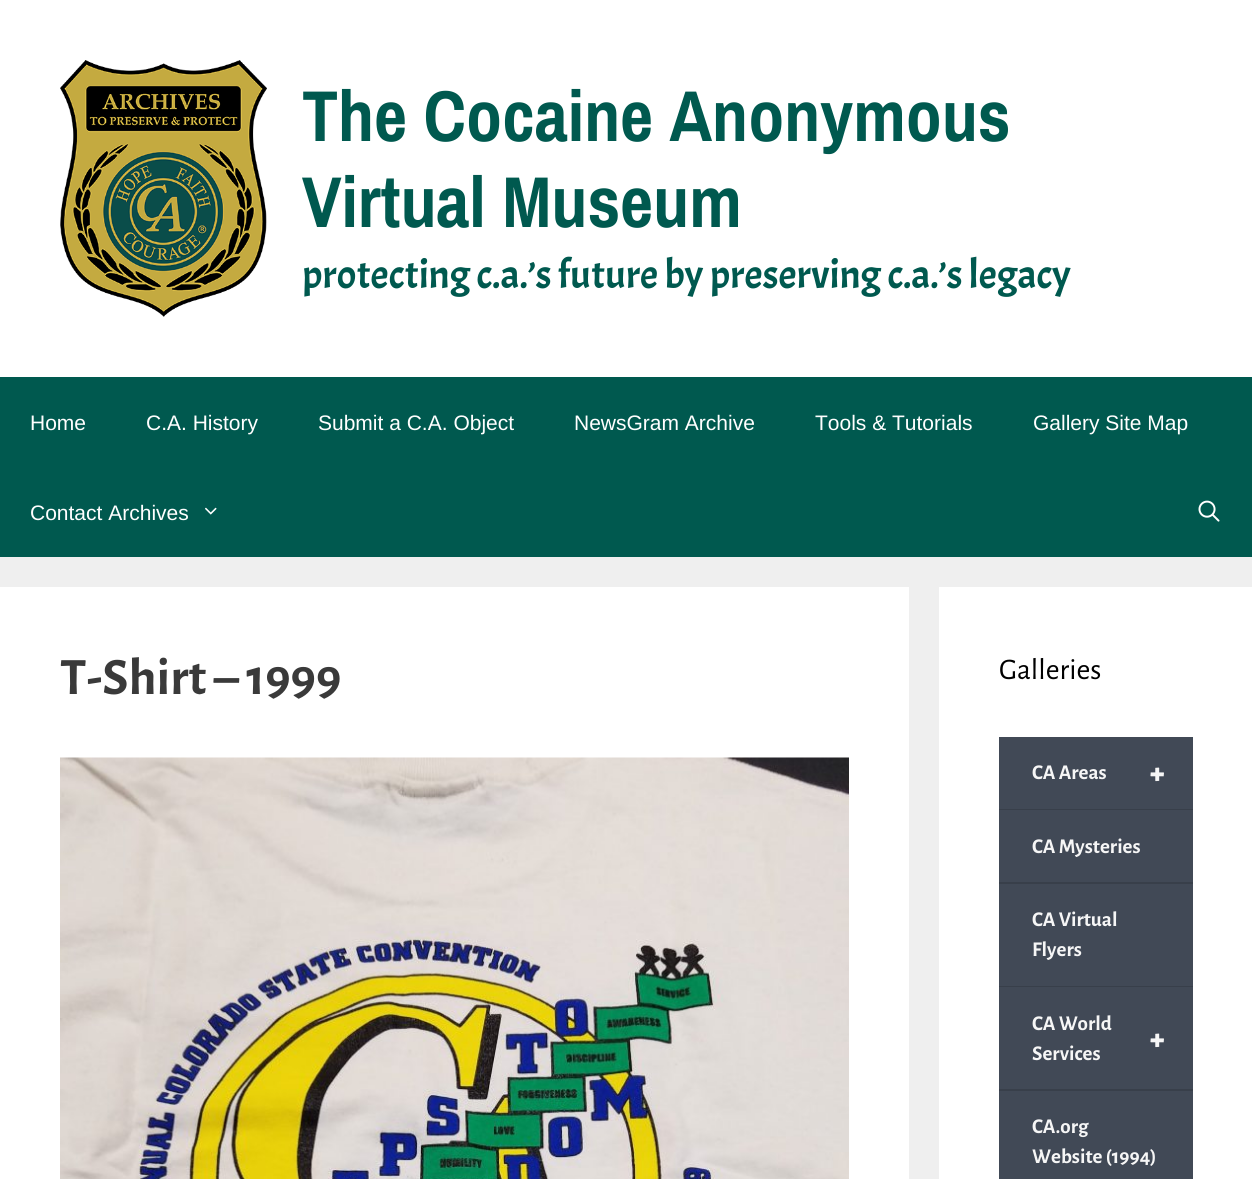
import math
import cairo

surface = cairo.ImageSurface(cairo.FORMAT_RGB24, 1252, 1179)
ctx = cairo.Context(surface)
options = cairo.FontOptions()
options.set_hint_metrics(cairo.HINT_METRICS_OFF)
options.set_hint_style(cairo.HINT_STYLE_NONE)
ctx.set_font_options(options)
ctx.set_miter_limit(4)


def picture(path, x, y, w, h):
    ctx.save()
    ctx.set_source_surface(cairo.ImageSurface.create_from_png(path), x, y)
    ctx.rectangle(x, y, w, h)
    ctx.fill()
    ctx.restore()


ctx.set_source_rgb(0.937, 0.937, 0.937)
ctx.paint()
ctx.set_source_rgb(1, 1, 1)
ctx.rectangle(0, 0, 1252, 377)
ctx.fill()
picture("img1.png", 60, 60, 207, 257)
ctx.select_font_face("Archivo Narrow", cairo.FONT_SLANT_NORMAL, cairo.FONT_WEIGHT_BOLD)
ctx.set_font_size(72)
ctx.set_source_rgb(0, 0.349, 0.31)
ctx.move_to(302, 141)
ctx.show_text("The Cocaine Anonymous")
ctx.move_to(302, 227)
ctx.show_text("Virtual Museum")
ctx.select_font_face("Acme")
ctx.set_font_size(40.5)
ctx.move_to(302, 288)
ctx.show_text("protecting c.a.’s future by preserving c.a.’s legacy")
ctx.rectangle(0, 377, 1252, 180)
ctx.fill()
ctx.select_font_face("Liberation Sans")
ctx.set_font_size(21)
ctx.set_source_rgb(1, 1, 1)
ctx.move_to(30, 430)
ctx.show_text("Home")
ctx.move_to(146, 430)
ctx.show_text("C.A. History")
ctx.move_to(318, 430)
ctx.show_text("Submit a C.A. Object")
ctx.move_to(574, 430)
ctx.show_text("NewsGram Archive")
ctx.move_to(815, 430)
ctx.show_text("Tools & Tutorials")
ctx.move_to(1033, 430)
ctx.show_text("Gallery Site Map")
ctx.move_to(30, 520)
ctx.show_text("Contact Archives")
picture("img2.png", 205, 507, 12, 8)
picture("img3.png", 1198, 500, 22, 22)
ctx.rectangle(0, 587, 909, 592)
ctx.fill()
ctx.select_font_face("Alegreya Sans", cairo.FONT_SLANT_NORMAL, cairo.FONT_WEIGHT_BOLD)
ctx.set_font_size(52.5)
ctx.set_source_rgb(0.227, 0.227, 0.227)
ctx.move_to(60, 694)
ctx.show_text("T-Shirt – 1999")
picture("img4.png", 60, 757, 789, 422)
ctx.set_source_rgb(1, 1, 1)
ctx.rectangle(939, 587, 313, 592)
ctx.fill()
ctx.select_font_face("Alegreya Sans")
ctx.set_font_size(30)
ctx.set_source_rgb(0, 0, 0)
ctx.move_to(999, 679)
ctx.show_text("Galleries")
ctx.set_source_rgb(0.255, 0.286, 0.337)
ctx.rectangle(999, 737, 194, 72)
ctx.fill()
ctx.set_source_rgb(0.22, 0.247, 0.29)
ctx.rectangle(999, 809, 194, 1)
ctx.fill()
ctx.select_font_face("Alegreya Sans", cairo.FONT_SLANT_NORMAL, cairo.FONT_WEIGHT_BOLD)
ctx.set_font_size(21)
ctx.set_source_rgb(0.961, 0.961, 0.961)
ctx.move_to(1032, 779)
ctx.show_text("CA Areas")
ctx.select_font_face("Alegreya Sans Black")
ctx.set_font_size(30)
ctx.move_to(1150, 782)
ctx.show_text("+")
ctx.set_source_rgb(0.255, 0.286, 0.337)
ctx.rectangle(999, 810, 194, 72)
ctx.fill()
ctx.set_source_rgb(0.22, 0.247, 0.29)
ctx.rectangle(999, 882, 194, 2)
ctx.fill()
ctx.select_font_face("Alegreya Sans", cairo.FONT_SLANT_NORMAL, cairo.FONT_WEIGHT_BOLD)
ctx.set_font_size(21)
ctx.set_source_rgb(0.961, 0.961, 0.961)
ctx.move_to(1032, 853)
ctx.show_text("CA Mysteries")
ctx.set_source_rgb(0.255, 0.286, 0.337)
ctx.rectangle(999, 884, 194, 102)
ctx.fill()
ctx.set_source_rgb(0.22, 0.247, 0.29)
ctx.rectangle(999, 986, 194, 1)
ctx.fill()
ctx.set_source_rgb(0.961, 0.961, 0.961)
ctx.move_to(1032, 926)
ctx.show_text("CA Virtual")
ctx.move_to(1032, 956)
ctx.show_text("Flyers")
ctx.set_source_rgb(0.255, 0.286, 0.337)
ctx.rectangle(999, 987, 194, 102)
ctx.fill()
ctx.set_source_rgb(0.22, 0.247, 0.29)
ctx.rectangle(999, 1089, 194, 2)
ctx.fill()
ctx.set_source_rgb(0.961, 0.961, 0.961)
ctx.move_to(1032, 1030)
ctx.show_text("CA World")
ctx.select_font_face("Alegreya Sans Black")
ctx.set_font_size(30)
ctx.move_to(1150, 1048)
ctx.show_text("+")
ctx.select_font_face("Alegreya Sans", cairo.FONT_SLANT_NORMAL, cairo.FONT_WEIGHT_BOLD)
ctx.set_font_size(21)
ctx.move_to(1032, 1060)
ctx.show_text("Services")
ctx.set_source_rgb(0.255, 0.286, 0.337)
ctx.rectangle(999, 1091, 194, 88)
ctx.fill()
ctx.set_source_rgb(0.961, 0.961, 0.961)
ctx.move_to(1032, 1133)
ctx.show_text("CA.org")
ctx.move_to(1032, 1163)
ctx.show_text("Website (1994)")
surface.write_to_png("page.png")
